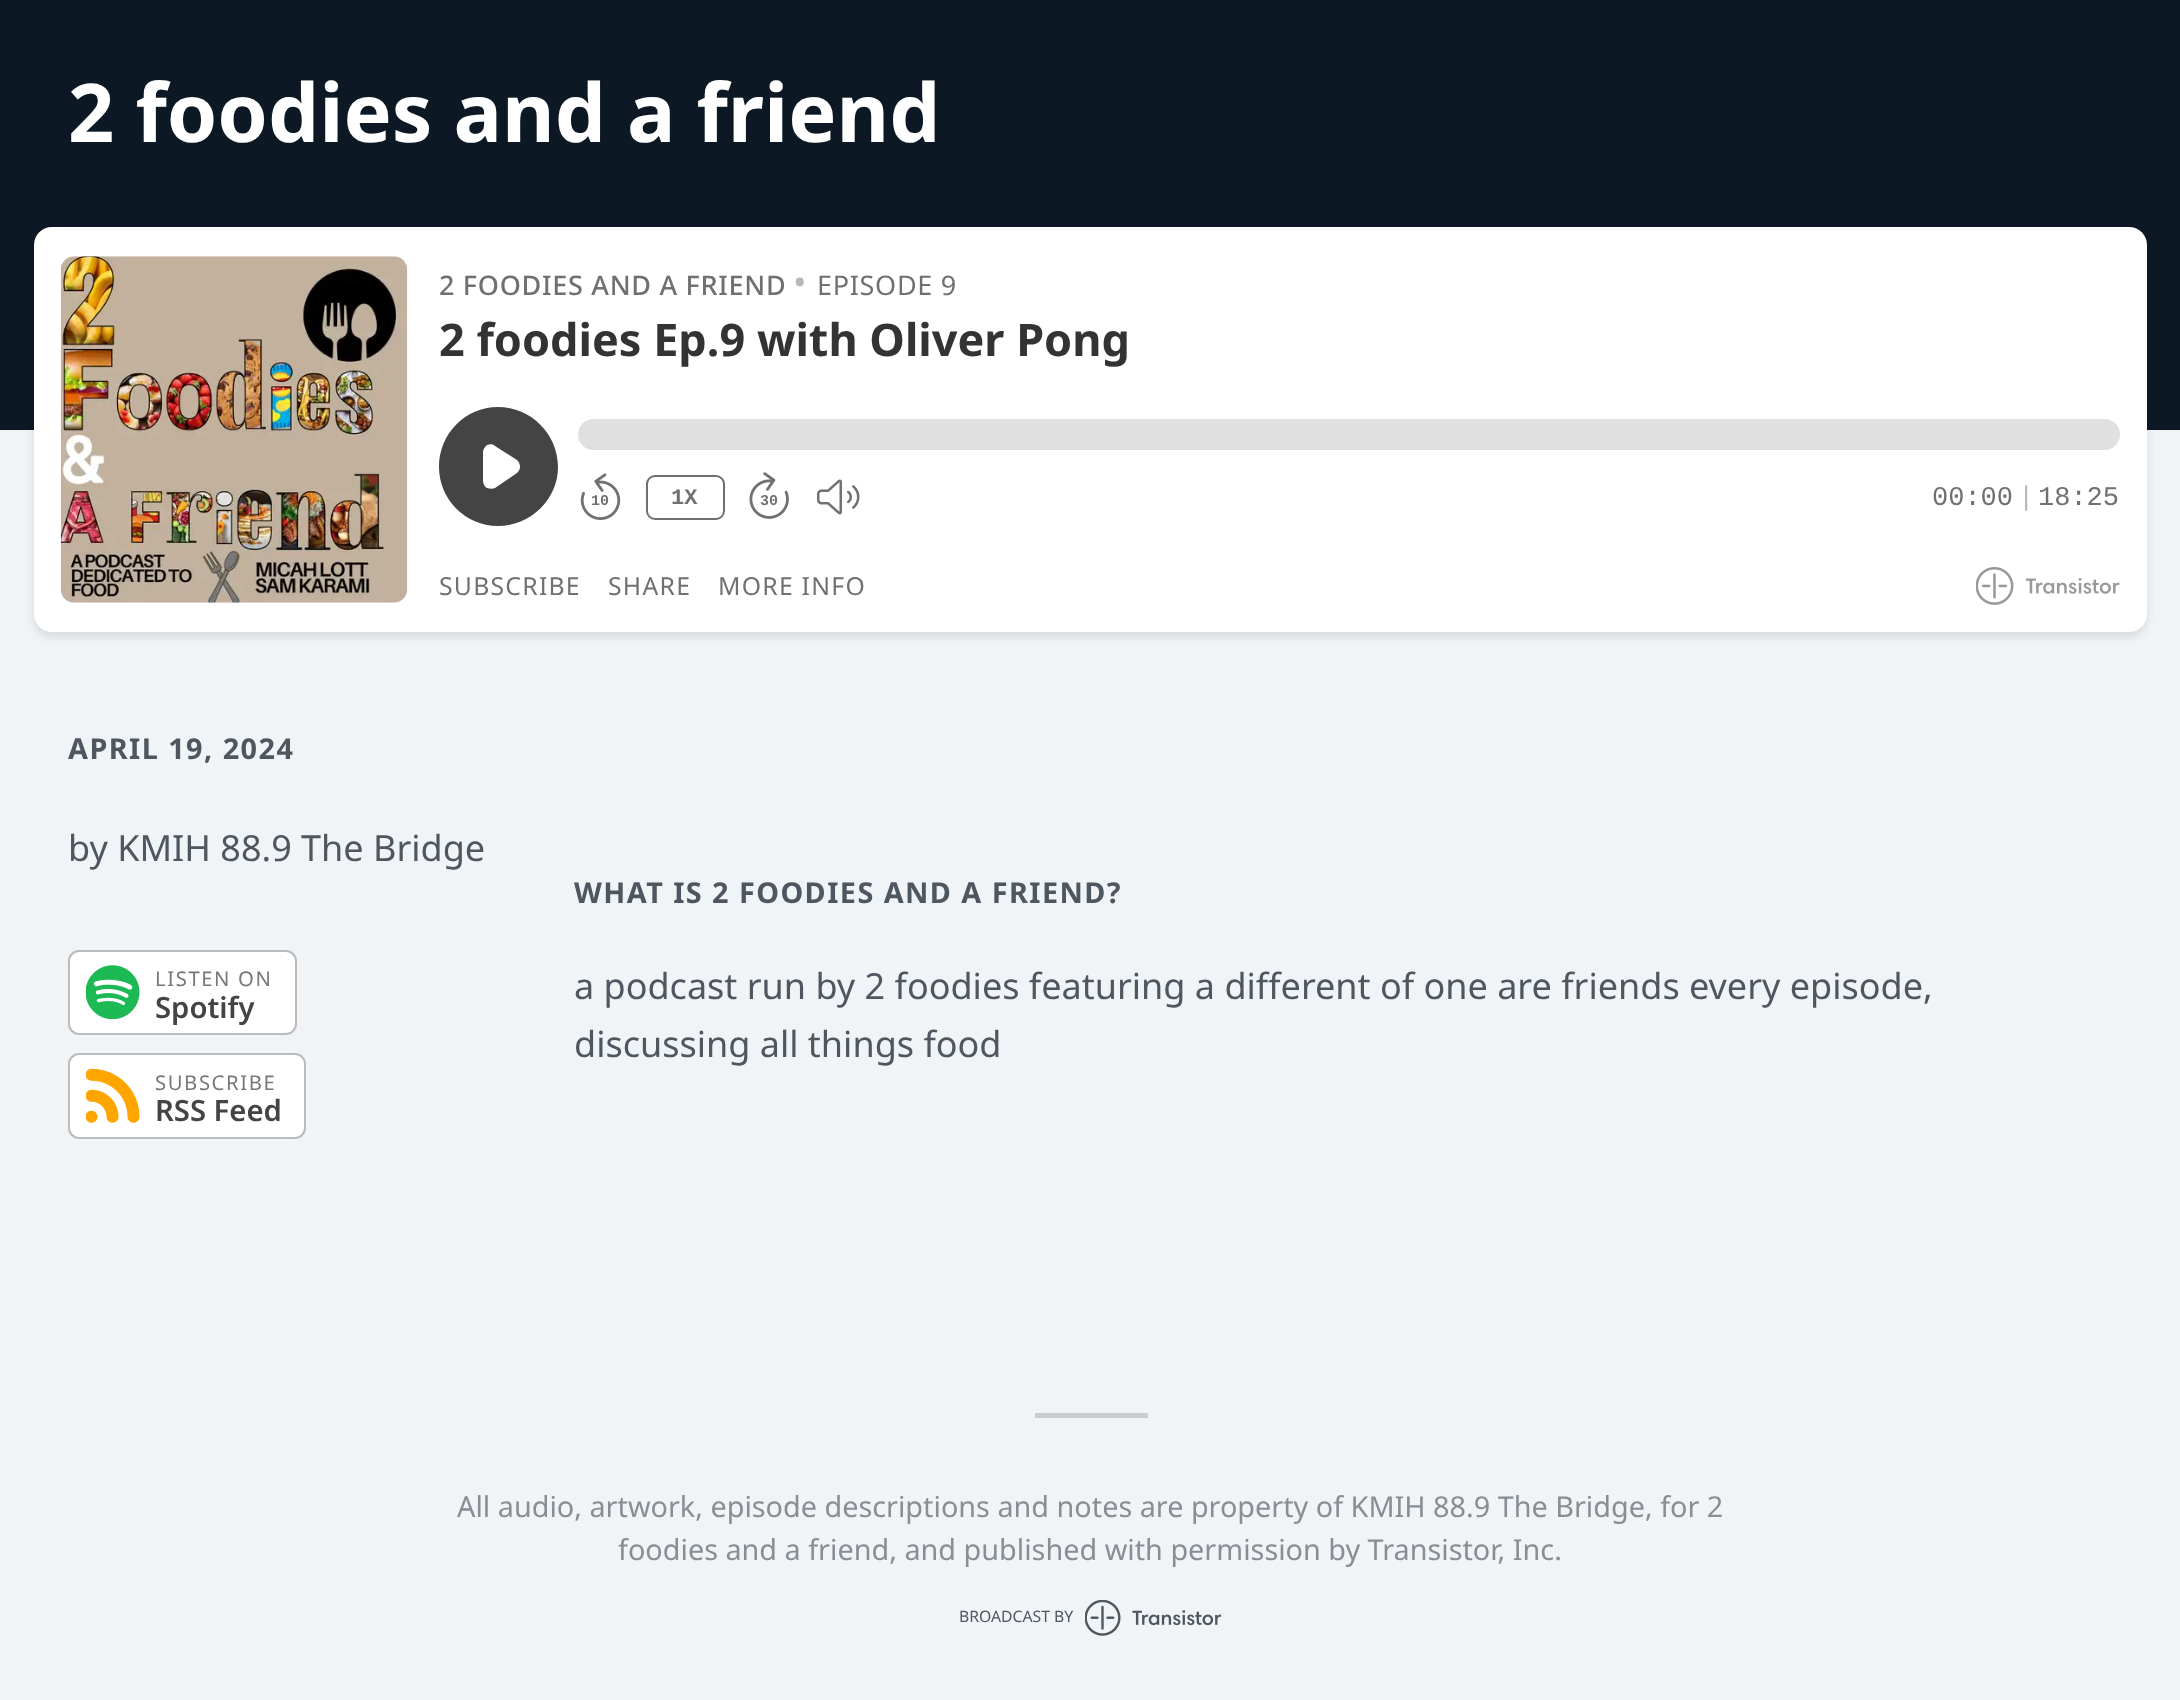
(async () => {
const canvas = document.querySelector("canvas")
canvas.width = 2180
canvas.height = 1700
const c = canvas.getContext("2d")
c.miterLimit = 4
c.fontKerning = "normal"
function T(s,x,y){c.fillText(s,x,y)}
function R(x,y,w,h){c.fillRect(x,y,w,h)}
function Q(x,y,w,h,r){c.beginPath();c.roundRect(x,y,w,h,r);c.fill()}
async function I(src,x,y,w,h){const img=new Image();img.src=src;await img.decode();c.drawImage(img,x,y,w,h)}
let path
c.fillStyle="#f1f4f7"
R(0,0,2180,1700)
c.fillStyle="#0c1824"
R(0,0,2180,430)
c.font="bold 81px Noto Sans"
c.fillStyle="#fff"
T("2 foodies and a friend",68,142)
c.fillStyle="#0000001a"
c.filter="blur(4.5px)"
c.beginPath()
c.roundRect(34,232,2113,405,18)
c.fill()
c.filter="none"
c.fillStyle="#fff"
Q(34,227,2113,405,18)
await I("1.png",60,256,348,347)
c.letterSpacing="0.7px"
c.font="500 27px Noto Sans"
c.fillStyle="#707070"
T("2 FOODIES AND A FRIEND",439,295)
c.font="36px Noto Sans"
c.fillStyle="#b8b8b8"
T("•",793,295)
c.font="27px Noto Sans"
c.fillStyle="#707070"
T("EPISODE 9",817,295)
c.letterSpacing="0px"
c.font="bold 45px Noto Sans"
c.fillStyle="#333"
T("2 foodies Ep.9 with Oliver Pong",439,356)
c.fillStyle="#444"
path = new Path2D("M498 526c33 0 60-27 60-59c0-33-27-60-60-60c-33 0-59 27-59 60c0 32 26 59 59 59zm-3-80c-2-2-5-2-8-1c-2 2-4 4-4 7v29c0 3 2 6 4 7c3 1 6 1 8 0l22-15c2-2 3-4 3-6c0-3-1-5-3-7z")
c.fill(path,"evenodd")
c.fillStyle="#e0e0e0"
Q(578,419,1542,31,15.5)
c.font="bold 15px Liberation Mono"
c.fillStyle="#707070"
T("10",591,505)
await I("2.png",580,473,41,47)
c.beginPath()
c.roundRect(647,476,77,43,8)
c.strokeStyle="#707070"
c.lineWidth=2
c.stroke()
c.font="bold 22px Liberation Mono"
T("1X",671,504)
c.font="bold 15px Liberation Mono"
T("30",760,505)
await I("3.png",749,472,40,47)
await I("4.png",817,479,43,36)
c.font="27px Liberation Mono"
T("00:00",1932,505)
c.fillStyle="#b8b8b8"
T("|",2018,505)
c.fillStyle="#707070"
T("18:25",2038,505)
c.letterSpacing="1.25px"
c.font="24.75px Noto Sans"
T("SUBSCRIBE",439,595)
T("SHARE",608,595)
T("MORE INFO",718,595)
await I("5.png",1976,567,144,38)
c.letterSpacing="1.45px"
c.font="bold 28.8px Noto Sans"
c.fillStyle="#4e575f"
T("APRIL 19, 2024",68,759)
c.letterSpacing="0px"
c.font="36px Noto Sans"
T("by KMIH 88.9 The Bridge",68,861)
c.fillStyle="#fff"
c.beginPath()
c.roundRect(69,951,227,83,10)
c.fill()
c.strokeStyle="#bbb"
c.stroke()
await I("6.png",86,965,54,54)
c.letterSpacing="1.6px"
c.font="20.25px Noto Sans"
c.fillStyle="#777"
T("LISTEN ON",155,986)
c.letterSpacing="0px"
c.font="600 29.25px Noto Sans"
c.fillStyle="#444"
T("Spotify",155,1018)
c.fillStyle="#fff"
c.beginPath()
c.roundRect(69,1054,236,84,10)
c.fill()
c.stroke()
await I("7.png",86,1069,54,54)
c.letterSpacing="1.6px"
c.font="20.25px Noto Sans"
c.fillStyle="#777"
T("SUBSCRIBE",155,1090)
c.letterSpacing="0px"
c.font="600 29.25px Noto Sans"
c.fillStyle="#444"
T("RSS Feed",155,1121)
c.letterSpacing="1.45px"
c.font="bold 28.8px Noto Sans"
c.fillStyle="#4e575f"
T("WHAT IS 2 FOODIES AND A FRIEND?",574,903)
c.letterSpacing="0px"
c.font="36px Noto Sans"
T("a podcast run by 2 foodies featuring a different of one are friends every episode,",574,999)
T("discussing all things food",574,1057)
c.fillStyle="#c8cdd1"
R(1035,1413,113,5)
c.font="28.8px Noto Sans"
c.fillStyle="#878e94"
T("All audio, artwork, episode descriptions and notes are property of KMIH 88.9 The Bridge, for 2",457,1517)
T("foodies and a friend, and published with permission by Transistor, Inc.",618,1560)
c.font="15.75px Noto Sans"
c.fillStyle="#4e575f"
T("BROADCAST BY",959,1622)
await I("8.png",1085,1600,137,36)
})()
